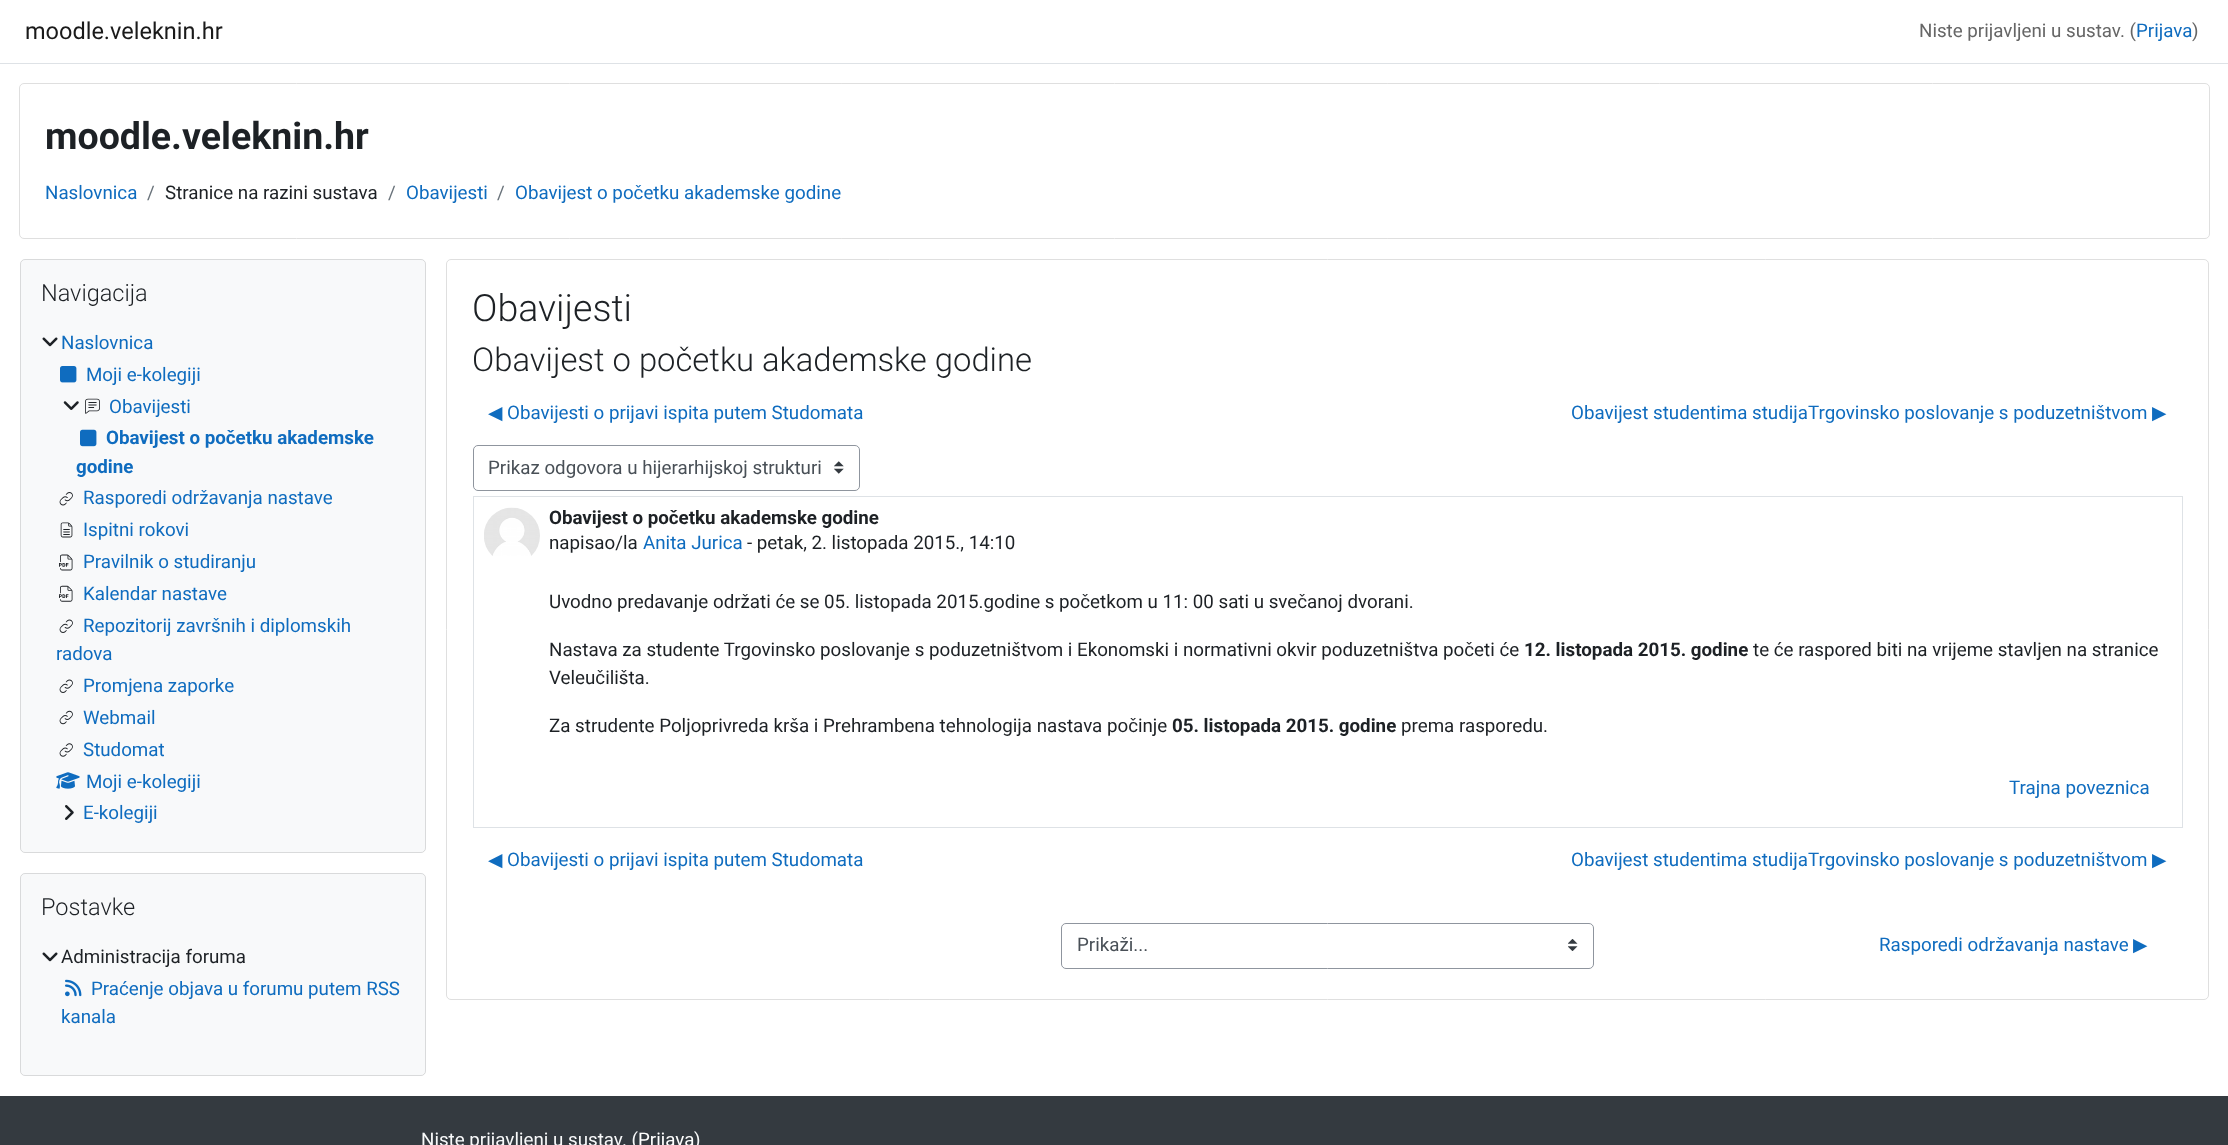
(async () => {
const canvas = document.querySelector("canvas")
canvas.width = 2228
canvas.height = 1145
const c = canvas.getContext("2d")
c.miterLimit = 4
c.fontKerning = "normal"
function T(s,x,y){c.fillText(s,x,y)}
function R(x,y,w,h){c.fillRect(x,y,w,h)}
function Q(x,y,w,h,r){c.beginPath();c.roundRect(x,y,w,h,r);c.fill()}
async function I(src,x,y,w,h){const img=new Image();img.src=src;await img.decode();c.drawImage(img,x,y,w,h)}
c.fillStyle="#fff"
R(0,0,2228,1145)
c.fillStyle="#dee2e6"
R(0,63,2228,1)
c.font="23.5px Roboto"
c.fillStyle="#1a1a1a"
T("moodle.veleknin.hr",25,39)
c.font="18.75px Roboto"
c.fillStyle="#666"
T("Niste prijavljeni u sustav. (",1919,37)
c.fillStyle="#0f6cbf"
T("Prijava",2136,37)
c.fillStyle="#666"
T(")",2192,37)
c.beginPath()
c.roundRect(19.5,83.5,2190,155,4.5)
c.strokeStyle="#dfdfdf"
c.stroke()
c.font="bold 37.5px Roboto"
c.fillStyle="#1d2125"
T("moodle.veleknin.hr",45,149)
c.font="18.75px Roboto"
c.fillStyle="#0f6cbf"
T("Naslovnica",45,199)
c.fillStyle="#6a737b"
T("/",147,199)
c.fillStyle="#1d2125"
T("Stranice na razini sustava",165,199)
c.fillStyle="#6a737b"
T("/",388,199)
c.fillStyle="#0f6cbf"
T("Obavijesti",406,199)
c.fillStyle="#6a737b"
T("/",497,199)
c.fillStyle="#0f6cbf"
T("Obavijest o početku akademske godine",515,199)
c.fillStyle="#f8f9fa"
Q(20,259,406,594,5)
c.beginPath()
c.roundRect(20.5,259.5,405,593,4.5)
c.strokeStyle="#0000001f"
c.stroke()
c.font="300 23.5px Roboto"
c.fillStyle="#1d2125"
T("Navigacija",41,301)
await I("1.png",42,337,16,10)
c.font="18.75px Roboto"
c.fillStyle="#0f6cbf"
T("Naslovnica",61,349)
await I("2.png",60,366,17,17)
T("Moji e-kolegiji",86,381)
await I("3.png",63,401,16,9)
await I("4.png",85,398,15,16)
T("Obavijesti",109,413)
await I("5.png",80,429,17,18)
c.font="bold 18.75px Roboto"
T("Obavijest o početku akademske",106,444)
T("godine",76,473)
await I("6.png",59,492,14,14)
c.font="18.75px Roboto"
T("Rasporedi održavanja nastave",83,504)
await I("7.png",60,522,13,16)
T("Ispitni rokovi",83,536)
await I("8.png",59,554,14,17)
T("Pravilnik o studiranju",83,568)
await I("9.png",59,585,14,17)
T("Kalendar nastave",83,600)
await I("10.png",59,619,14,14)
T("Repozitorij završnih i diplomskih",83,632)
T("radova",56,660)
await I("10.png",59,679,14,14)
T("Promjena zaporke",83,692)
await I("11.png",59,710,14,15)
T("Webmail",83,724)
await I("12.png",59,743,14,14)
T("Studomat",83,756)
await I("13.png",56,772,24,17)
T("Moji e-kolegiji",86,788)
await I("14.png",65,805,9,15)
T("E-kolegiji",83,819)
c.fillStyle="#f8f9fa"
Q(20,873,406,203,5)
c.beginPath()
c.roundRect(20.5,873.5,405,202,4.5)
c.stroke()
c.font="300 23.5px Roboto"
c.fillStyle="#1d2125"
T("Postavke",41,915)
await I("1.png",42,952,16,10)
c.font="18.75px Roboto"
T("Administracija foruma",61,963)
await I("15.png",65,979,17,18)
c.fillStyle="#0f6cbf"
T("Praćenje objava u forumu putem RSS",91,995)
T("kanala",61,1023)
c.beginPath()
c.roundRect(446.5,259.5,1762,740,4.5)
c.strokeStyle="#dfdfdf"
c.stroke()
c.font="300 37.5px Roboto"
c.fillStyle="#1d2125"
T("Obavijesti",472,321)
c.font="300 32.8px Roboto"
T("Obavijest o početku akademske godine",472,371)
c.font="18.75px DejaVu Sans"
c.fillStyle="#0f6cbf"
T("◀︎",488,419)
c.font="18.75px Roboto"
T("Obavijesti o prijavi ispita putem Studomata",507,419)
T("Obavijest studentima studijaTrgovinsko poslovanje s poduzetništvom",1571,419)
c.font="18.75px DejaVu Sans"
T("▶︎",2152,419)
await I("16.png",834,461,10,13)
c.beginPath()
c.roundRect(473.5,445.5,386,45,4.5)
c.strokeStyle="#8f959e"
c.stroke()
c.font="18.75px Roboto"
c.fillStyle="#495057"
T("Prikaz odgovora u hijerarhijskoj strukturi",488,474)
c.strokeStyle="#dee2e6"
c.strokeRect(473.5,496.5,1709,331)
await I("17.png",484,507,56,49)
c.font="bold 18.75px Roboto"
c.fillStyle="#1d2125"
T("Obavijest o početku akademske godine",549,524)
c.font="18.75px Roboto"
T("napisao/la",549,549)
c.fillStyle="#0f6cbf"
T("Anita Jurica",643,549)
c.fillStyle="#1d2125"
T("- petak, 2. listopada 2015., 14:10",747,549)
T("Uvodno predavanje održati će se 05. listopada 2015.godine s početkom u 11: 00 sati u svečanoj dvorani.",549,608)
T("Nastava za studente Trgovinsko poslovanje s poduzetništvom i Ekonomski i normativni okvir poduzetništva početi će",549,656)
c.font="bold 18.75px Roboto"
T("12. listopada 2015. godine",1524,656)
c.font="18.75px Roboto"
T("te će raspored biti na vrijeme stavljen na stranice",1753,656)
T("Veleučilišta.",549,684)
T("Za strudente Poljoprivreda krša i Prehrambena tehnologija nastava počinje",549,732)
c.font="bold 18.75px Roboto"
T("05. listopada 2015. godine",1172,732)
c.font="18.75px Roboto"
T("prema rasporedu.",1401,732)
c.fillStyle="#0f6cbf"
T("Trajna poveznica",2009,794)
c.font="18.75px DejaVu Sans"
T("◀︎",488,866)
c.font="18.75px Roboto"
T("Obavijesti o prijavi ispita putem Studomata",507,866)
T("Obavijest studentima studijaTrgovinsko poslovanje s poduzetništvom",1571,866)
c.font="18.75px DejaVu Sans"
T("▶︎",2152,866)
await I("18.png",1568,939,10,12)
c.beginPath()
c.roundRect(1061.5,923.5,532,45,4.5)
c.strokeStyle="#8f959e"
c.stroke()
c.font="18.75px Roboto"
c.fillStyle="#495057"
T("Prikaži...",1077,951)
c.fillStyle="#0f6cbf"
T("Rasporedi održavanja nastave",1879,951)
c.font="18.75px DejaVu Sans"
T("▶︎",2133,951)
c.fillStyle="#343a40"
R(0,1096,2228,49)
c.font="18.75px Roboto"
c.fillStyle="#f8f9fa"
T("Niste prijavljeni u sustav. (",421,1146)
c.fillStyle="#fff"
T("Prijava",638,1146)
c.fillStyle="#f8f9fa"
T(")",694,1146)
})()
